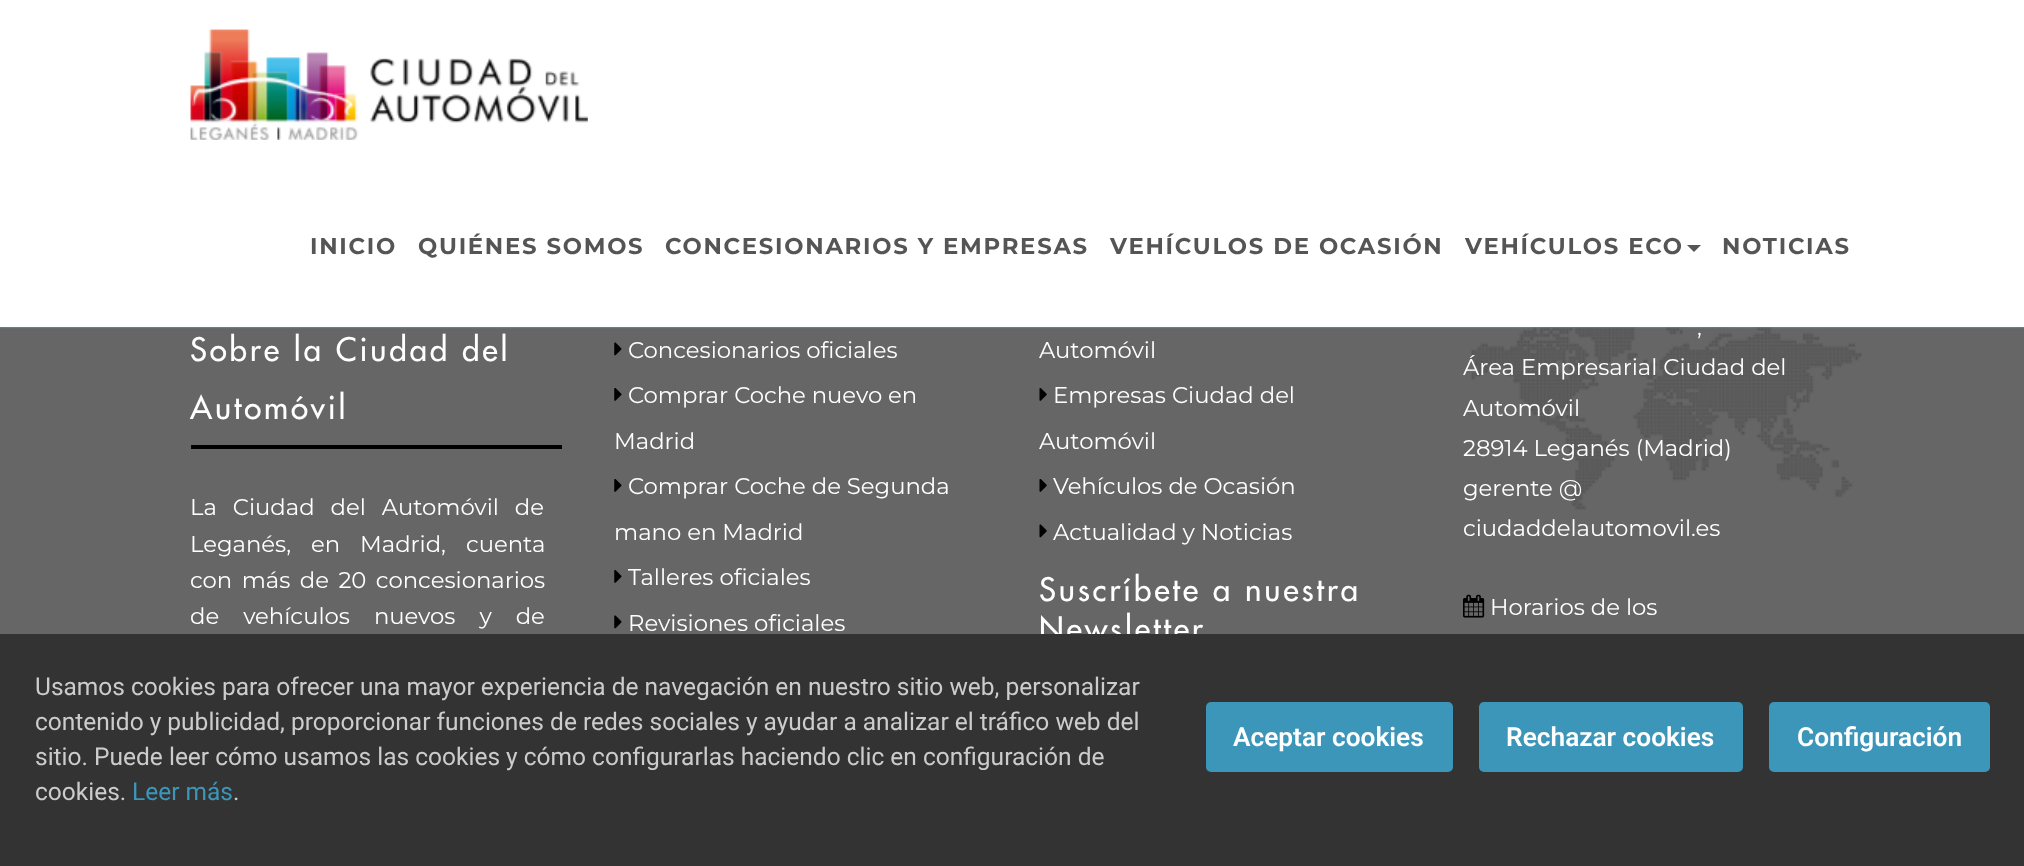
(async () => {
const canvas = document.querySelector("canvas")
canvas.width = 2024
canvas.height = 866
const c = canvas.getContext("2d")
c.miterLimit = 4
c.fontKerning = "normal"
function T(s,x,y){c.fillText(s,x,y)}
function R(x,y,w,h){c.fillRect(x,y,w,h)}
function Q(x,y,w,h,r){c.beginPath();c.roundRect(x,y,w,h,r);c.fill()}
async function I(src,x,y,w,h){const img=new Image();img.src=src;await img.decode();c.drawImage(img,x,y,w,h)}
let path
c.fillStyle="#666"
R(0,0,2024,866)
await I("6.png",1471,327,391,183)
c.fillStyle="#4cbce8"
c.filter="blur(1px)"
c.beginPath()
c.rect(0,0,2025,327)
c.fill()
c.filter="none"
c.fillStyle="#fff"
R(0,0,2024,327)
await I("1.png",190,29,398,111)
c.letterSpacing="1.75px"
c.font="bold 22.75px Montserrat"
c.fillStyle="#555"
T("INICIO",310,254)
T("QUIÉNES SOMOS",418,254)
T("CONCESIONARIOS Y EMPRESAS",665,254)
T("VEHÍCULOS DE OCASIÓN",1110,254)
T("VEHÍCULOS ECO",1465,254)
path = new Path2D("M1687 245h14l-7 7z")
c.fill(path)
T("NOTICIAS",1722,254)
c.fillStyle="#000"
R(191,445,371,4)
c.letterSpacing="2.8px"
c.font="31.5px Futura"
c.fillStyle="#fff"
T("Sobre la Ciudad del",190,361)
T("Automóvil",190,419)
c.letterSpacing="0px"
c.wordSpacing="10px"
c.font="22.75px Montserrat"
T("La Ciudad del Automóvil de",190,515)
c.wordSpacing="14px"
T("Leganés, en Madrid, cuenta",190,552)
c.wordSpacing="3.5px"
T("con más de 20 concesionarios",190,588)
c.wordSpacing="18px"
T("de vehículos nuevos y de",190,624)
await I("2.png",614,342,8,14)
c.wordSpacing="0px"
T("Concesionarios oficiales",628,358)
await I("3.png",614,388,8,13)
T("Comprar Coche nuevo en",628,403)
T("Madrid",614,449)
await I("3.png",614,479,8,13)
T("Comprar Coche de Segunda",628,494)
T("mano en Madrid",614,540)
await I("3.png",614,570,8,13)
T("Talleres oficiales",628,585)
await I("2.png",614,615,8,14)
T("Revisiones oficiales",628,631)
T("Automóvil",1039,358)
await I("4.png",1039,388,8,13)
T("Empresas Ciudad del",1053,403)
T("Automóvil",1039,449)
await I("4.png",1039,479,8,13)
T("Vehículos de Ocasión",1053,494)
await I("5.png",1039,524,8,14)
T("Actualidad y Noticias",1053,540)
c.letterSpacing="2.8px"
c.font="31.5px Futura"
T("Suscríbete a nuestra",1039,601)
T("Newsletter",1039,640)
c.letterSpacing="0px"
c.font="22.75px Montserrat"
T(",",1697,335)
T("Área Empresarial Ciudad del",1463,375)
T("Automóvil",1463,416)
T("28914 Leganés (Madrid)",1463,456)
T("gerente @",1463,496)
T("ciudaddelautomovil.es",1463,536)
await I("7.png",1463,594,22,24)
T("Horarios de los",1490,615)
c.fillStyle="#333"
R(0,634,2024,232)
c.font="24.5px Roboto"
c.fillStyle="#ccc"
T("Usamos cookies para ofrecer una mayor experiencia de navegación en nuestro sitio web, personalizar",35,695)
T("contenido y publicidad, proporcionar funciones de redes sociales y ayudar a analizar el tráfico web del",35,730)
T("sitio. Puede leer cómo usamos las cookies y cómo configurarlas haciendo clic en configuración de",35,765)
T("cookies.",35,800)
c.fillStyle="#3c96b9"
T("Leer más",132,800)
c.fillStyle="#ccc"
T(".",233,800)
c.fillStyle="#3c96b9"
Q(1206,702,247,70,5)
c.font="600 26.25px Roboto"
c.fillStyle="#fff"
T("Aceptar cookies",1233,746)
c.fillStyle="#3c96b9"
Q(1479,702,264,70,5)
c.fillStyle="#fff"
T("Rechazar cookies",1506,746)
c.fillStyle="#3c96b9"
Q(1769,702,221,70,5)
c.fillStyle="#fff"
T("Configuración",1797,746)
})()
